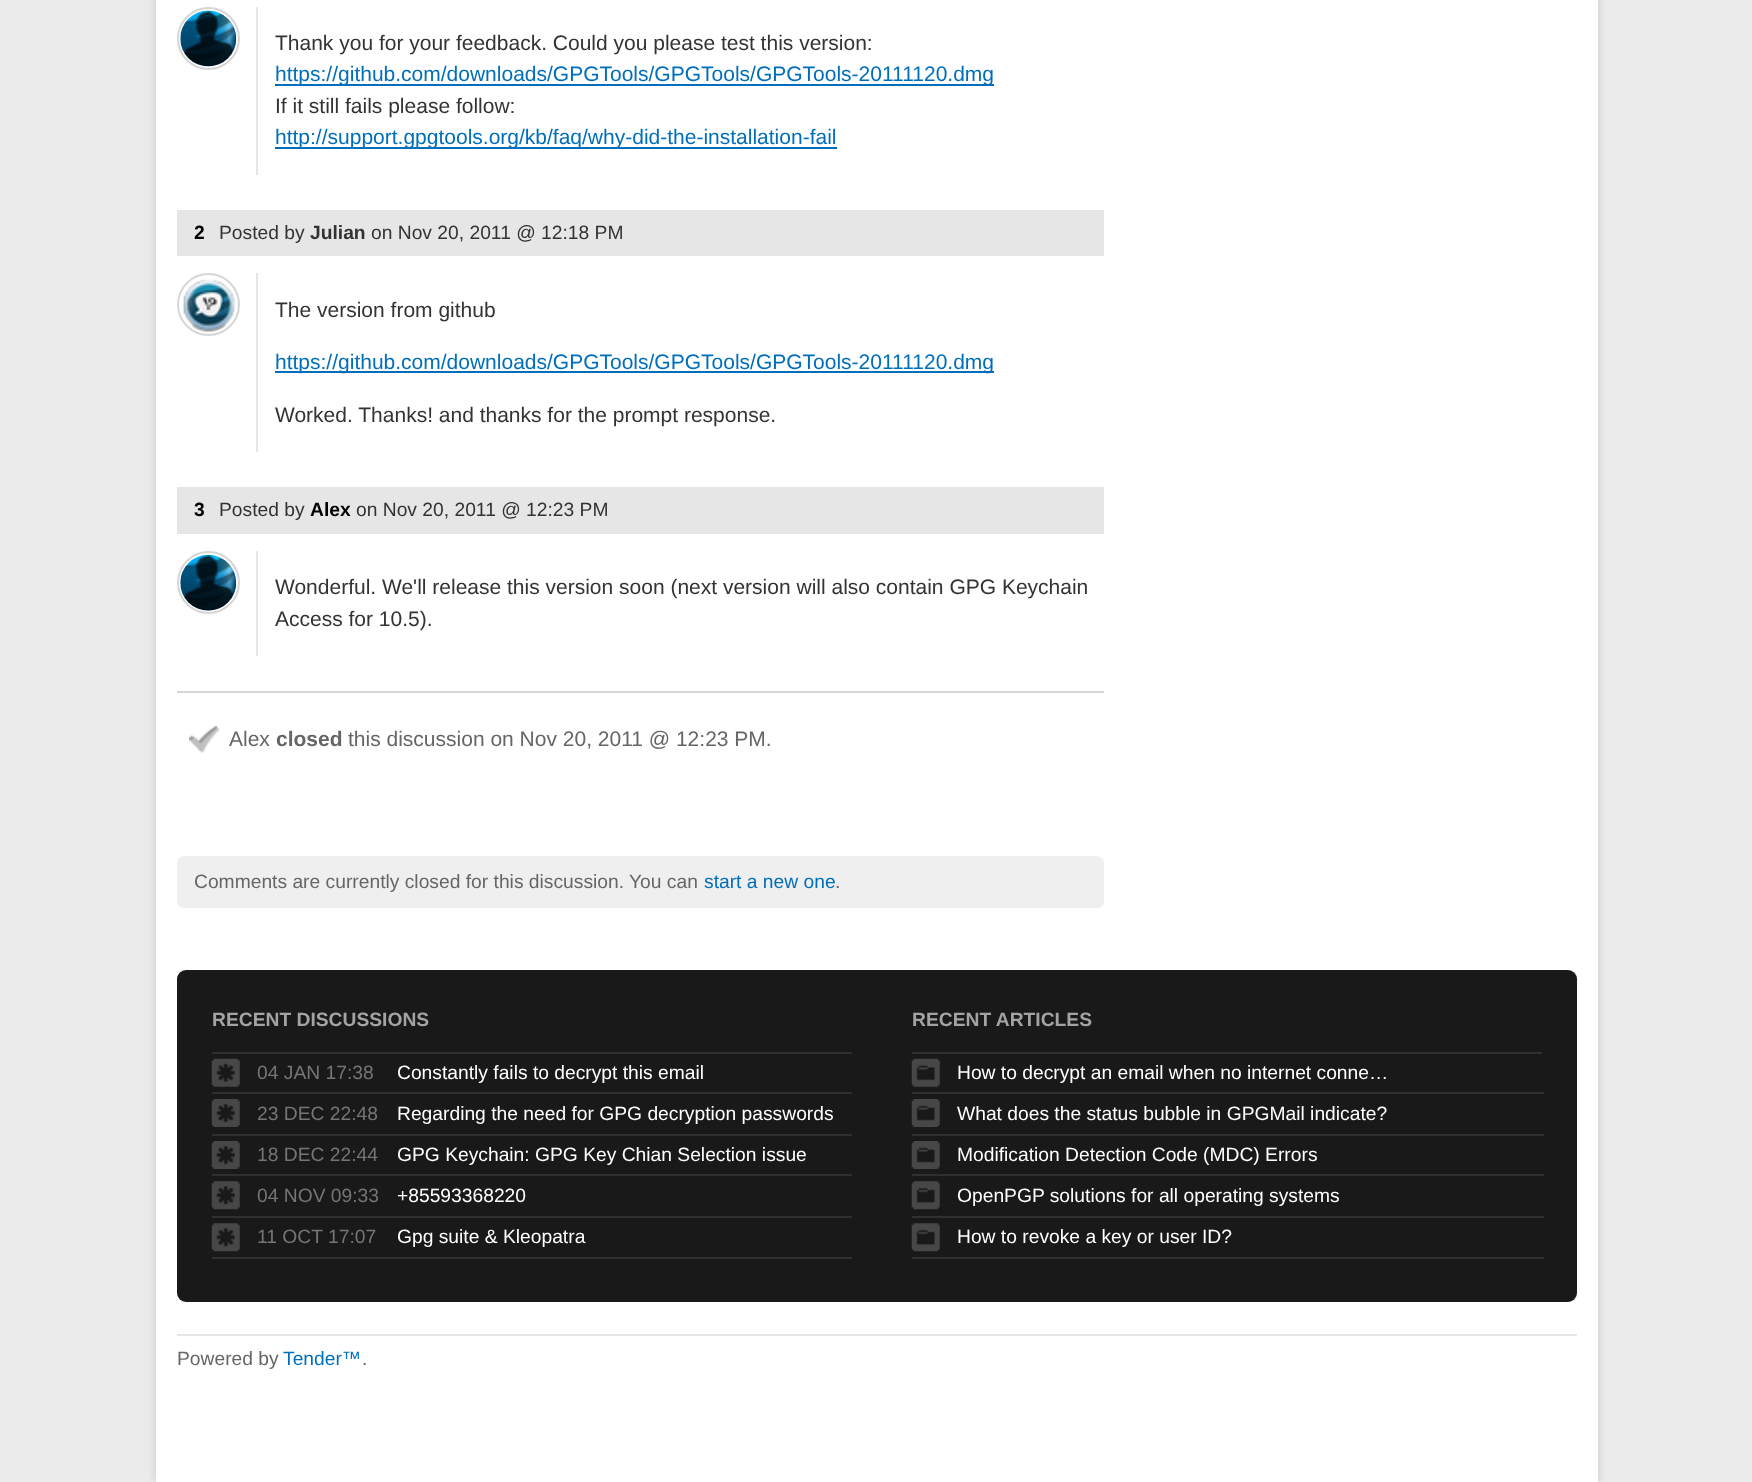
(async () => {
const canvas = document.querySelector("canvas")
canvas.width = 1752
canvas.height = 1482
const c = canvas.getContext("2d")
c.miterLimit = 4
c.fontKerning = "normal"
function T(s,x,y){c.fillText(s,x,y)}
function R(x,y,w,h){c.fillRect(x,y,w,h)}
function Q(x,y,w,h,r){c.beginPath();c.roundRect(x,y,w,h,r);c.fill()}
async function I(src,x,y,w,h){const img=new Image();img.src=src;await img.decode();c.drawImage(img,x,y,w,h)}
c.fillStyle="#ebebeb"
R(0,0,1752,1482)
c.fillStyle="#00000026"
c.filter="blur(4.5px)"
c.beginPath()
c.rect(156,-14,1442,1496)
c.fill()
c.filter="none"
c.fillStyle="#fff"
R(156,0,1442,1482)
c.beginPath()
c.arc(208.5,38.5,30.5,0,7)
c.strokeStyle="#d6d6d6"
c.lineWidth=2
c.stroke()
await I("1.png",180,10,57,57)
c.fillStyle="#e6e6e6"
R(256,7,2,168)
c.font="21px Liberation Sans"
c.fillStyle="#333"
T("Thank you for your feedback. Could you please test this version:",275,50)
c.fillStyle="#006fbb"
R(275,84,719,2)
T("https://github.com/downloads/GPGTools/GPGTools/GPGTools-20111120.dmg",275,81)
c.fillStyle="#333"
T("If it still fails please follow:",275,113)
c.fillStyle="#006fbb"
R(275,147,562,2)
T("http://support.gpgtools.org/kb/faq/why-did-the-installation-fail",275,144)
c.fillStyle="#e6e6e6"
R(177,210,927,46)
c.font="bold 19.25px Liberation Sans"
c.fillStyle="#000"
T("2",194,239)
c.font="19.25px Liberation Sans"
c.fillStyle="#333"
T("Posted by",219,239)
c.font="bold 19.25px Liberation Sans"
T("Julian",310,239)
c.font="19.25px Liberation Sans"
T("on Nov 20, 2011 @ 12:18 PM",371,239)
c.beginPath()
c.arc(208.5,304.5,30.5,0,7)
c.stroke()
await I("2.png",182,279,53,54)
c.fillStyle="#e6e6e6"
R(256,273,2,179)
c.font="21px Liberation Sans"
c.fillStyle="#333"
T("The version from github",275,317)
c.fillStyle="#006fbb"
R(275,371,719,2)
T("https://github.com/downloads/GPGTools/GPGTools/GPGTools-20111120.dmg",275,369)
c.fillStyle="#333"
T("Worked. Thanks! and thanks for the prompt response.",275,422)
c.fillStyle="#e6e6e6"
R(177,487,927,47)
c.font="bold 19.25px Liberation Sans"
c.fillStyle="#000"
T("3",194,516)
c.font="19.25px Liberation Sans"
c.fillStyle="#333"
T("Posted by",219,516)
c.font="bold 19.25px Liberation Sans"
c.fillStyle="#000"
T("Alex",310,516)
c.font="19.25px Liberation Sans"
c.fillStyle="#333"
T("on Nov 20, 2011 @ 12:23 PM",356,516)
c.beginPath()
c.arc(208.5,582.5,30.5,0,7)
c.stroke()
await I("3.png",180,554,57,57)
c.fillStyle="#e6e6e6"
R(256,551,2,105)
c.font="21px Liberation Sans"
c.fillStyle="#333"
T("Wonderful. We'll release this version soon (next version will also contain GPG Keychain",275,594)
T("Access for 10.5).",275,626)
c.fillStyle="#d6d6d6"
R(177,691,927,2)
await I("4.png",189,725,31,28)
c.fillStyle="#666"
T("Alex",229,746)
c.font="bold 21px Liberation Sans"
T("closed",276,746)
c.font="21px Liberation Sans"
T("this discussion on Nov 20, 2011 @ 12:23 PM.",348,746)
c.fillStyle="#efefef"
Q(177,856,927,52,7)
c.font="19.25px Liberation Sans"
c.fillStyle="#666"
T("Comments are currently closed for this discussion.",194,888)
T("You can",629,888)
c.fillStyle="#006fbb"
T("start a new one",704,888)
c.fillStyle="#666"
T(".",835,888)
c.fillStyle="#191919"
Q(177,970,1400,332,9)
c.font="bold 19.25px Liberation Sans"
c.fillStyle="#a3a3a3"
T("RECENT DISCUSSIONS",212,1026)
c.fillStyle="#303030"
R(212,1052,640,2)
await I("5.png",211,1058,29,29)
c.font="19.25px Liberation Sans"
c.fillStyle="#757575"
T("04 JAN 17:38",257,1079)
c.fillStyle="#303030"
R(212,1092,640,2)
c.fillStyle="#fff"
T("Constantly fails to decrypt this email",397,1079)
await I("6.png",211,1099,29,28)
c.fillStyle="#757575"
T("23 DEC 22:48",257,1120)
c.fillStyle="#303030"
R(212,1134,640,2)
c.fillStyle="#fff"
T("Regarding the need for GPG decryption passwords",397,1120)
await I("6.png",211,1141,29,28)
c.fillStyle="#757575"
T("18 DEC 22:44",257,1161)
c.fillStyle="#303030"
R(212,1174,640,2)
c.fillStyle="#fff"
T("GPG Keychain: GPG Key Chian Selection issue",397,1161)
await I("7.png",211,1181,29,29)
c.fillStyle="#757575"
T("04 NOV 09:33",257,1202)
c.fillStyle="#303030"
R(212,1216,640,2)
c.fillStyle="#fff"
T("+85593368220",397,1202)
await I("7.png",211,1223,29,29)
c.fillStyle="#757575"
T("11 OCT 17:07",257,1243)
c.fillStyle="#303030"
R(212,1257,640,2)
c.fillStyle="#fff"
T("Gpg suite & Kleopatra",397,1243)
c.font="bold 19.25px Liberation Sans"
c.fillStyle="#a3a3a3"
T("RECENT ARTICLES",912,1026)
c.fillStyle="#303030"
R(912,1052,630,2)
await I("8.png",911,1058,29,29)
R(912,1092,632,2)
c.font="19.25px Liberation Sans"
c.fillStyle="#fff"
T("How to decrypt an email when no internet conne…",957,1079)
await I("9.png",911,1099,29,28)
c.fillStyle="#303030"
R(912,1134,632,2)
c.fillStyle="#fff"
T("What does the status bubble in GPGMail indicate?",957,1120)
await I("9.png",911,1141,29,28)
c.fillStyle="#303030"
R(912,1174,632,2)
c.fillStyle="#fff"
T("Modification Detection Code (MDC) Errors",957,1161)
await I("10.png",911,1181,29,29)
c.fillStyle="#303030"
R(912,1216,632,2)
c.fillStyle="#fff"
T("OpenPGP solutions for all operating systems",957,1202)
await I("10.png",911,1223,29,29)
c.fillStyle="#303030"
R(912,1257,632,2)
c.fillStyle="#fff"
T("How to revoke a key or user ID?",957,1243)
c.fillStyle="#e6e6e6"
R(177,1334,1400,2)
c.fillStyle="#666"
T("Powered by",177,1365)
c.fillStyle="#006fbb"
T("Tender™",283,1365)
c.fillStyle="#666"
T(".",362,1365)
})()
